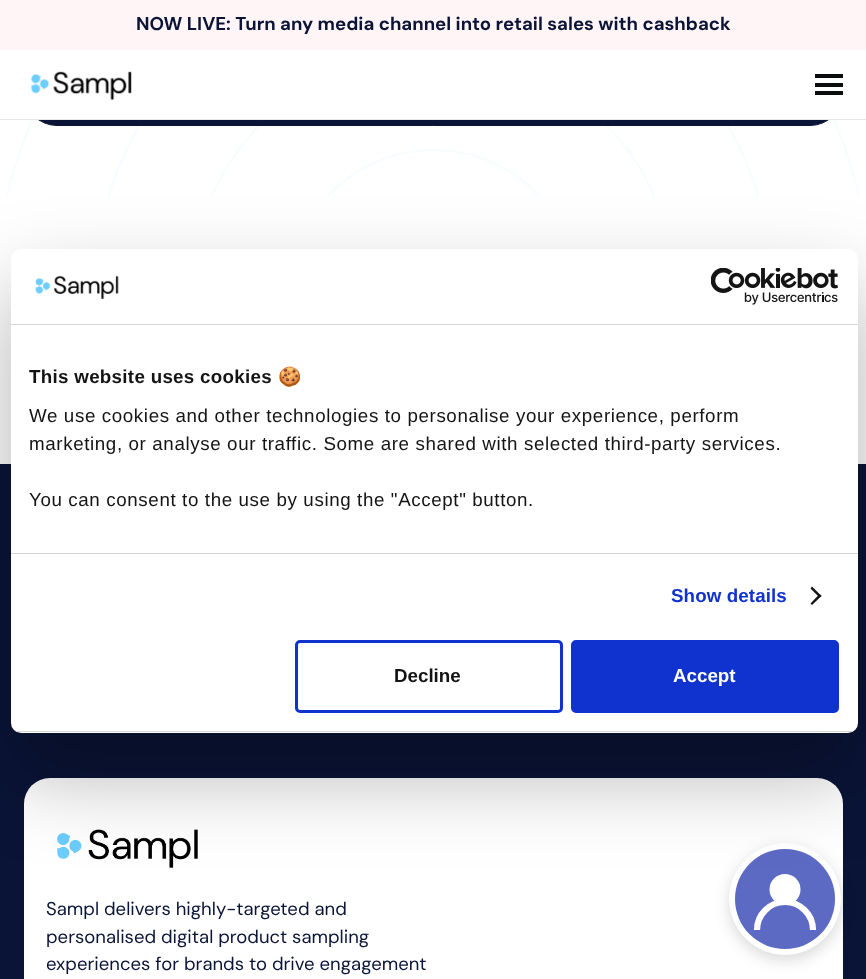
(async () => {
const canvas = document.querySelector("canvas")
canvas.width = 866
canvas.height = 979
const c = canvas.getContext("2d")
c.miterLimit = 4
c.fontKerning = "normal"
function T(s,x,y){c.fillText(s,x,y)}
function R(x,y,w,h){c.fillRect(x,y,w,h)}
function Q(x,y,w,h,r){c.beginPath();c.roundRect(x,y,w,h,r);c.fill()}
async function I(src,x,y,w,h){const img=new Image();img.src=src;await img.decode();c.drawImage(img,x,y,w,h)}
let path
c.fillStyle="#fff"
R(0,0,866,979)
c.beginPath()
c.roundRect(289,150,289,290,144.5)
c.strokeStyle="#f6fcff"
c.lineWidth=2
c.stroke()
c.beginPath()
c.roundRect(191,52,484,486,242)
c.stroke()
c.beginPath()
c.roundRect(94,-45,679,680,339.5)
c.stroke()
c.beginPath()
c.roundRect(-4,-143,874,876,437)
c.stroke()
c.fillStyle="#0a1437"
c.beginPath()
c.roundRect(24.5,60.5,818,65,32.5)
c.fill()
c.strokeStyle="#0a1437"
c.lineWidth=1
c.stroke()
c.fillStyle="#fff5f7"
R(0,0,866,50)
c.font="bold 18.55px DM Sans"
c.fillStyle="#0a1437"
T("NOW LIVE: Turn any media channel into retail sales with cashback",136,30)
c.fillStyle="#fff"
R(24,50,819,69)
c.fillStyle="#e8e6e8"
R(0,119,866,1)
await I("1.png",31,71,101,30)
c.fillStyle="#0b0c0e"
R(815,74,28,4)
R(815,83,28,4)
R(815,91,28,4)
c.fillStyle="#0a1437"
R(0,464,866,515)
c.fillStyle="#fff"
R(0,196,866,268)
Q(24,778,819,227,26)
await I("2.png",57,829,141,39)
c.font="18.55px DM Sans"
c.fillStyle="#0a1437"
T("Sampl delivers highly-targeted and",46,915)
T("personalised digital product sampling",46,943)
T("experiences for brands to drive engagement",46,970)
c.fillStyle="#00000026"
c.filter="blur(7.5px)"
c.beginPath()
c.roundRect(729,848,112,112,56)
c.fill()
c.filter="none"
c.fillStyle="#fff"
c.beginPath()
c.arc(785,899,55.5,0,7)
c.fill()
c.strokeStyle="#fff"
c.stroke()
c.fillStyle="#e5e7eb"
c.beginPath()
c.arc(785.5,898.5,51,0,7)
c.fill()
c.lineWidth=3
c.stroke()
c.fillStyle="#5c6ac4"
c.beginPath()
c.arc(785,899,50,0,7)
c.fill()
c.fillStyle="#fff"
c.beginPath()
c.arc(785,889.5,15.5,0,7)
c.fill()
path = new Path2D("M757 930c0-15.5 12.5-28 28-28c15.5 0 28 12.5 28 28")
c.lineWidth=6.2
c.stroke(path)
c.fillStyle="#0000004d"
c.filter="blur(42.5px)"
c.beginPath()
c.roundRect(11,289,847,484,10)
c.fill()
c.filter="none"
c.fillStyle="#fff"
Q(11,249,847,484,10)
c.fillStyle="#d6d6d6"
R(11,324,847,1)
await I("3.png",35,275,84,24)
await I("4.png",711,268,127,37)
R(11,553,847,1)
c.letterSpacing="0.3px"
c.font="bold 18.75px Liberation Sans"
c.fillStyle="#141414"
T("This website uses cookies",29,383)
c.font="bold 18.75px Noto Color Emoji"
T("🍪",278,383)
c.letterSpacing="0.62px"
c.font="18.75px Liberation Sans"
T("We use cookies and other technologies to personalise your experience, perform",29,422)
T("marketing, or analyse our traffic. Some are shared with selected third-party services.",29,450)
T("You can consent to the use by using the \"Accept\" button.",29,506)
c.letterSpacing="0.1px"
c.font="bold 18.75px Liberation Sans"
c.fillStyle="#1032cf"
T("Show details",671,602)
c.fillStyle="#141414"
path = new Path2D("M812 586.5l9.5 9.5l-2 1.5l-9-9z")
c.fill(path)
path = new Path2D("M819.5 594l2 2l-9.5 9l-1.5-1.5z")
c.fill(path)
c.save()
c.beginPath()
c.roundRect(11,249,847,484,10)
c.clip()
c.fillStyle="#d6d6d6"
R(11,731,847,1)
c.restore()
c.beginPath()
c.roundRect(296.5,641.5,265,70,3.5)
c.strokeStyle="#1032cf"
c.lineWidth=3
c.stroke()
c.letterSpacing="0px"
T("Decline",394,682)
c.fillStyle="#1032cf"
c.beginPath()
c.roundRect(572.5,641.5,265,70,3.5)
c.fill()
c.stroke()
c.fillStyle="#fff"
T("Accept",673,682)
})()
